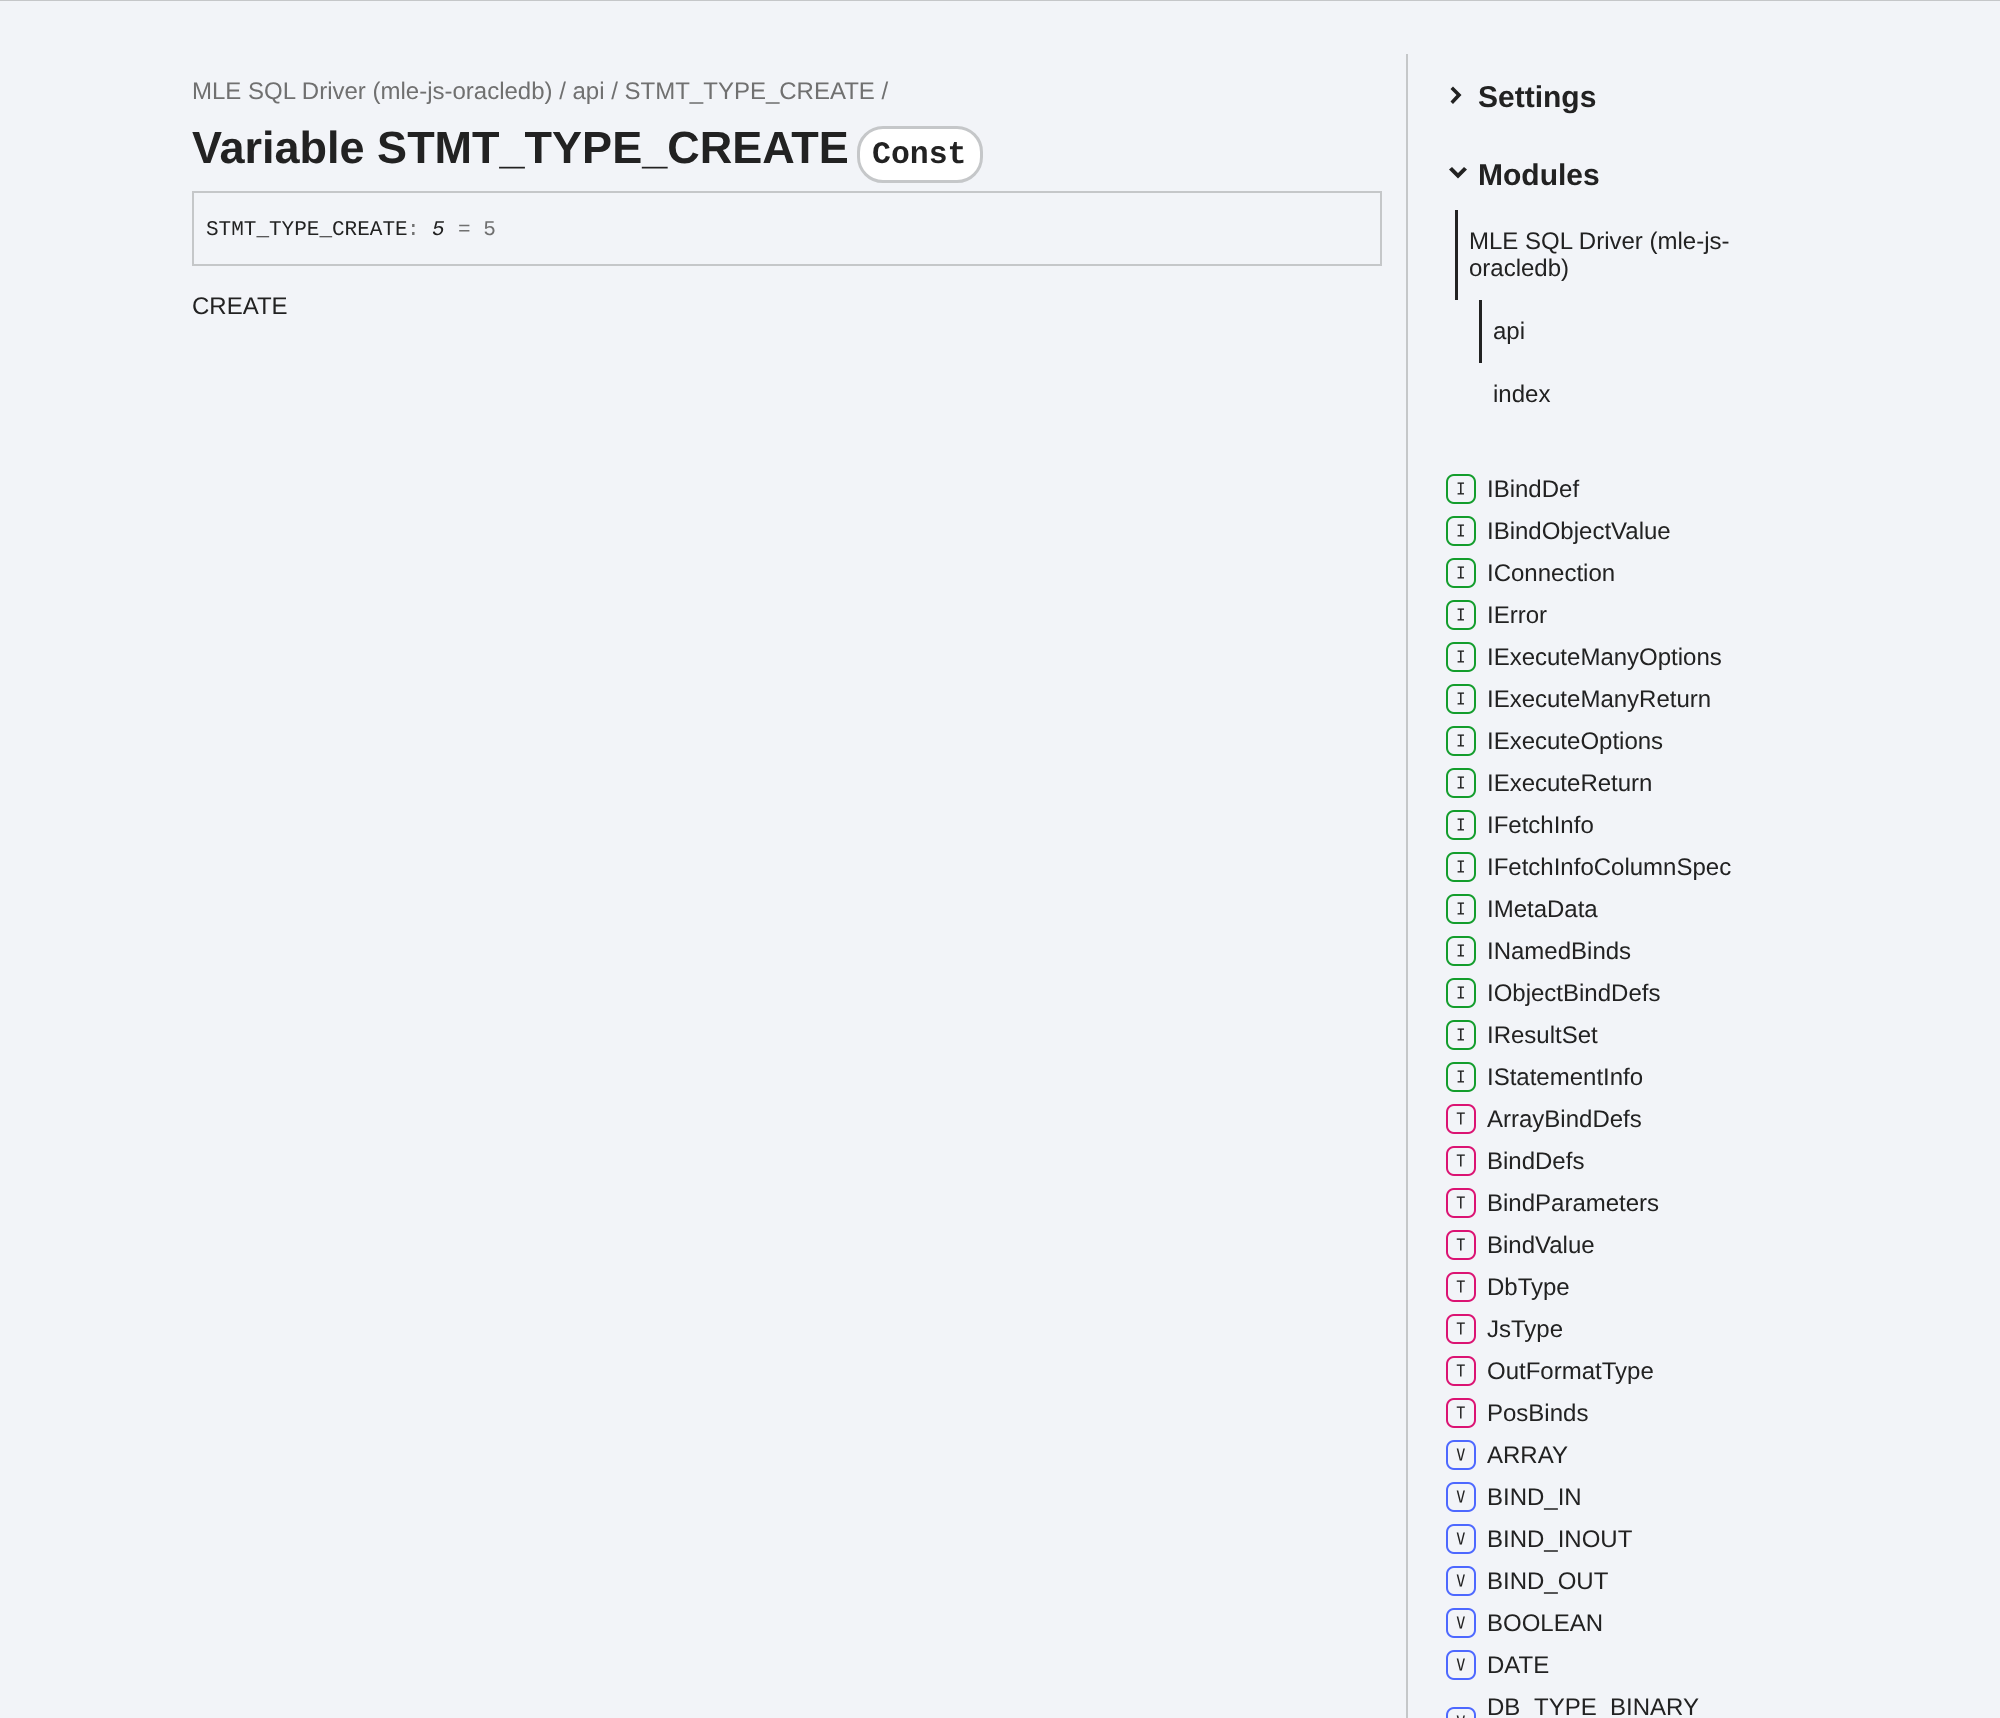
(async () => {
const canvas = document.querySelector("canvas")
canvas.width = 2000
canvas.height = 1718
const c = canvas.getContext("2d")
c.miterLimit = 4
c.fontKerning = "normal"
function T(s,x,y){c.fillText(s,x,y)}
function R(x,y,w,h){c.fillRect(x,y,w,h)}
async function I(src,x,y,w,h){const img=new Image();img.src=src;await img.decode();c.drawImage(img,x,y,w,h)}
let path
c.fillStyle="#f2f4f8"
R(0,0,2000,1718)
c.fillStyle="#c5c7c9"
R(0,0,2000,1)
c.font="24px Liberation Sans"
c.fillStyle="#707070"
T("MLE SQL Driver (mle-js-oracledb) / api / STMT_TYPE_CREATE /",192,99)
c.font="bold 45px Liberation Sans"
c.fillStyle="#222"
T("Variable STMT_TYPE_CREATE",192,163)
c.fillStyle="#fff"
c.beginPath()
c.roundRect(858.5,127.5,123,54,24.5)
c.fill()
c.strokeStyle="#c5c7c9"
c.lineWidth=3
c.stroke()
c.font="bold 31.5px Liberation Mono"
c.fillStyle="#222"
T("Const",872,163)
c.lineWidth=2
c.strokeRect(193,192,1188,73)
c.font="21px Liberation Mono"
T("STMT_TYPE_CREATE",206,235)
c.fillStyle="#707070"
T(":",407,235)
c.font="italic 21px Liberation Mono"
c.fillStyle="#222"
T("5",432,235)
c.font="21px Liberation Mono"
c.fillStyle="#707070"
T("= 5",458,235)
c.font="24px Liberation Sans"
c.fillStyle="#222"
T("CREATE",192,314)
c.fillStyle="#c5c7c9"
R(1406,54,2,1664)
c.fillStyle="#222"
path = new Path2D("M1453 104l8.5-9l-8.5-8.5l-2.5 2.5l6 6l-6 6.5z")
c.fill(path)
c.font="bold 30px Liberation Sans"
T("Settings",1478,107)
path = new Path2D("M1449 169.5l9 9l9-9l-3-2.5l-6 6l-6-6z")
c.fill(path)
T("Modules",1478,185)
R(1455,210,3,90)
c.font="24px Liberation Sans"
T("MLE SQL Driver (mle-js-",1469,249)
T("oracledb)",1469,276)
R(1479,300,3,63)
T("api",1493,339)
T("index",1493,402)
await I("1.png",1446,474,30,30)
T("IBindDef",1487,497)
await I("1.png",1446,516,30,30)
T("IBindObjectValue",1487,539)
await I("1.png",1446,558,30,30)
T("IConnection",1487,581)
await I("1.png",1446,600,30,30)
T("IError",1487,623)
await I("1.png",1446,642,30,30)
T("IExecuteManyOptions",1487,665)
await I("1.png",1446,684,30,30)
T("IExecuteManyReturn",1487,707)
await I("1.png",1446,726,30,30)
T("IExecuteOptions",1487,749)
await I("1.png",1446,768,30,30)
T("IExecuteReturn",1487,791)
await I("1.png",1446,810,30,30)
T("IFetchInfo",1487,833)
await I("1.png",1446,852,30,30)
T("IFetchInfoColumnSpec",1487,875)
await I("1.png",1446,894,30,30)
T("IMetaData",1487,917)
await I("1.png",1446,936,30,30)
T("INamedBinds",1487,959)
await I("1.png",1446,978,30,30)
T("IObjectBindDefs",1487,1001)
await I("1.png",1446,1020,30,30)
T("IResultSet",1487,1043)
await I("1.png",1446,1062,30,30)
T("IStatementInfo",1487,1085)
await I("2.png",1446,1104,30,30)
T("ArrayBindDefs",1487,1127)
await I("2.png",1446,1146,30,30)
T("BindDefs",1487,1169)
await I("2.png",1446,1188,30,30)
T("BindParameters",1487,1211)
await I("2.png",1446,1230,30,30)
T("BindValue",1487,1253)
await I("2.png",1446,1272,30,30)
T("DbType",1487,1295)
await I("2.png",1446,1314,30,30)
T("JsType",1487,1337)
await I("2.png",1446,1356,30,30)
T("OutFormatType",1487,1379)
await I("2.png",1446,1398,30,30)
T("PosBinds",1487,1421)
await I("3.png",1446,1440,30,30)
T("ARRAY",1487,1463)
await I("3.png",1446,1482,30,30)
T("BIND_IN",1487,1505)
await I("3.png",1446,1524,30,30)
T("BIND_INOUT",1487,1547)
await I("3.png",1446,1566,30,30)
T("BIND_OUT",1487,1589)
await I("3.png",1446,1608,30,30)
T("BOOLEAN",1487,1631)
await I("3.png",1446,1650,30,30)
T("DATE",1487,1673)
await I("4.png",1446,1707,30,11)
T("DB",1487,1715)
T("TYPE",1534,1715)
T("BINARY",1610,1715)
})()
